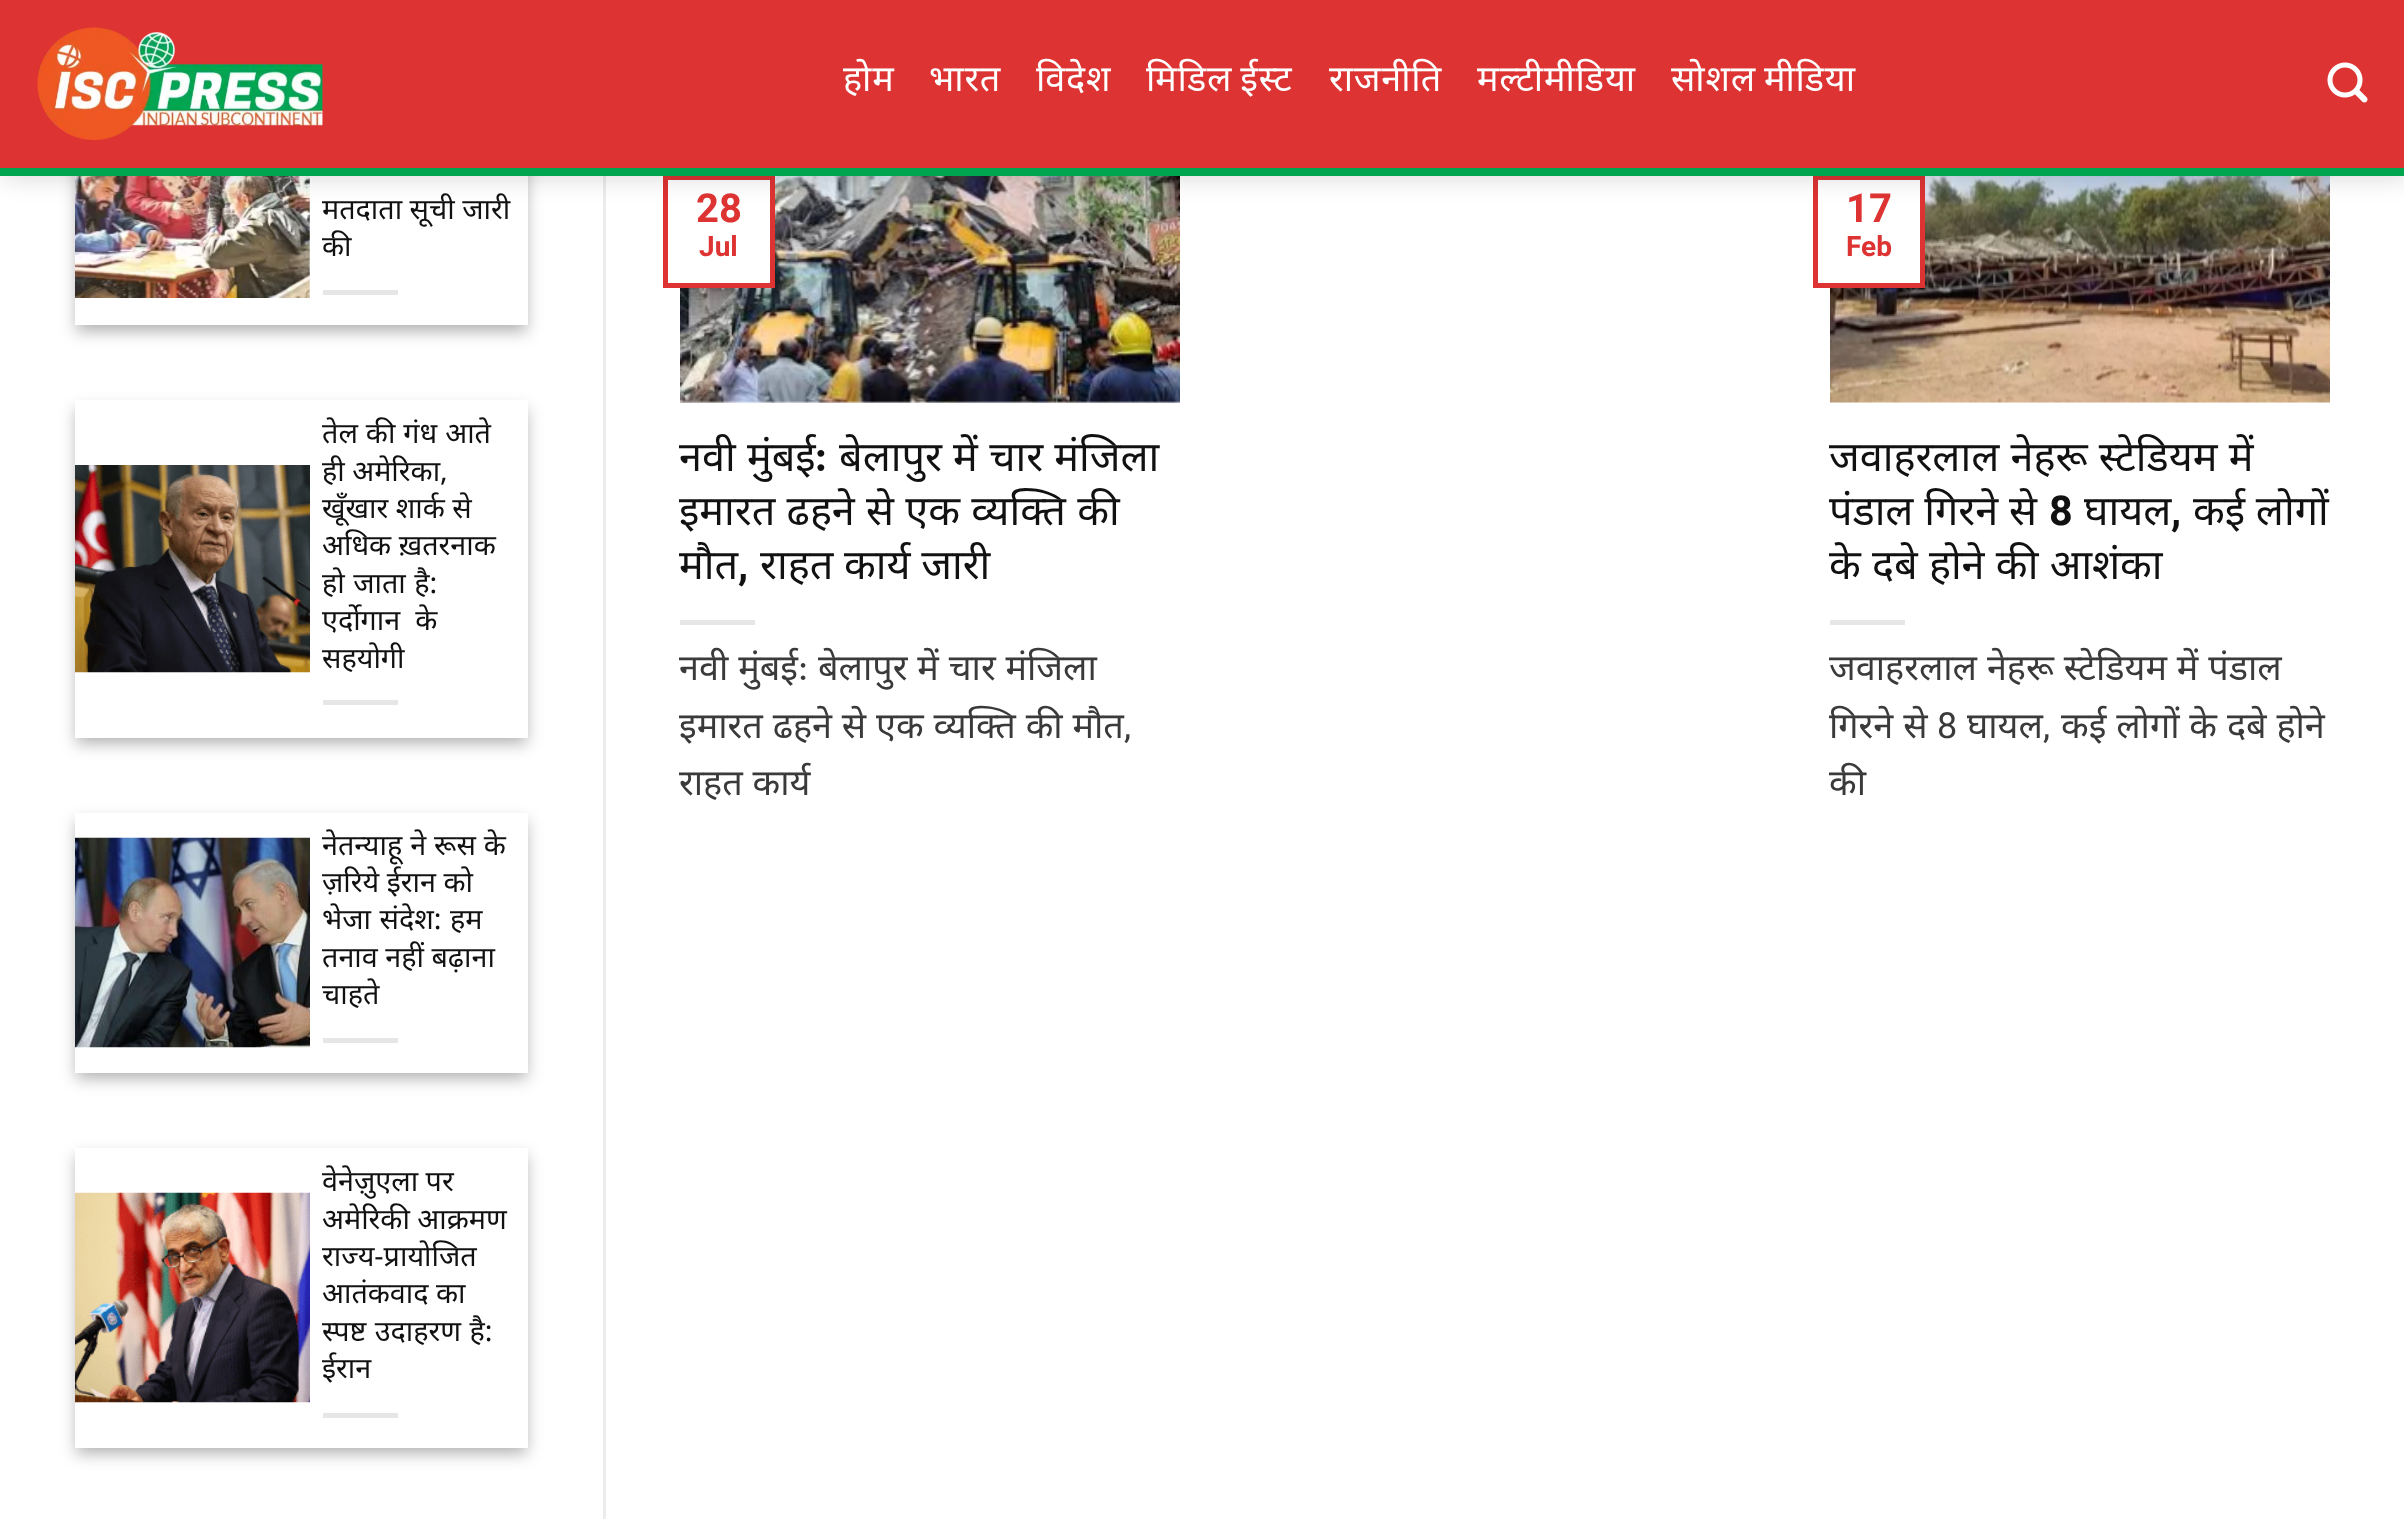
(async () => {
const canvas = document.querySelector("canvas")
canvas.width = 2404
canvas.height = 1519
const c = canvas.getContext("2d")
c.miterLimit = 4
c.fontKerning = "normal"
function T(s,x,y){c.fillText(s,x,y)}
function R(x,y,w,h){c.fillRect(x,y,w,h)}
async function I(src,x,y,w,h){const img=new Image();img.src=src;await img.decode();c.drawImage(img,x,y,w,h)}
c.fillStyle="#fff"
R(0,0,2404,1519)
c.fillStyle="#0000003b"
c.filter="blur(7.5px)"
c.beginPath()
c.rect(75,70,453,263)
c.fill()
c.filter="none"
c.fillStyle="#00000029"
c.filter="blur(7.5px)"
c.beginPath()
c.rect(85,80,433,243)
c.fill()
c.filter="none"
c.fillStyle="#fff"
R(75,176,453,149)
await I("3.png",75,176,235,122)
c.fillStyle="#ececec"
R(603,176,3,1343)
await I("7.png",680,176,500,227)
c.fillStyle="#fff"
R(680,180,90,103)
c.strokeStyle="#d33"
c.lineWidth=5
c.strokeRect(665.5,177.5,107,108)
await I("8.png",1830,176,500,227)
R(1830,180,90,103)
c.strokeRect(1815.5,177.5,107,108)
c.fillStyle="#00000026"
c.filter="blur(12.5px)"
c.beginPath()
c.rect(3,3,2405,175)
c.fill()
c.filter="none"
c.fillStyle="#d33"
R(0,0,2404,168)
c.fillStyle="#00a550"
R(0,168,2404,8)
await I("1.png",37,27,286,113)
c.letterSpacing="0.75px"
c.font="36px Noto Sans"
c.fillStyle="#fff"
T("होम",843,91)
T("भारत",929,91)
T("विदेश",1036,91)
c.wordSpacing="-2px"
T("मिडिल ईस्ट",1146,91)
c.wordSpacing="0px"
T("राजनीति",1329,91)
T("मल्टीमीडिया",1477,91)
c.wordSpacing="-2px"
T("सोशल मीडिया",1671,91)
await I("2.png",2327,62,41,41)
c.letterSpacing="0px"
c.wordSpacing="0px"
c.font="28.75px Noto Sans"
c.fillStyle="#111"
T("मतदाता सूची जारी",322,219)
T("की",322,256)
c.fillStyle="#e6e6e6"
R(323,290,75,5)
c.fillStyle="#0000003b"
c.filter="blur(7.5px)"
c.beginPath()
c.rect(75,408,453,337)
c.fill()
c.filter="none"
c.fillStyle="#00000029"
c.filter="blur(7.5px)"
c.beginPath()
c.rect(85,418,433,317)
c.fill()
c.filter="none"
c.fillStyle="#fff"
R(75,400,453,338)
await I("4.png",75,465,235,208)
c.wordSpacing="0.5px"
c.fillStyle="#111"
T("तेल की गंध आते",322,443)
c.wordSpacing="0px"
T("ही अमेरिका,",322,481)
T("खूँखार शार्क से",322,518)
T("अधिक ख़तरनाक",322,555)
c.wordSpacing="1px"
T("हो जाता है:",322,593)
c.wordSpacing="0px"
T("एर्दोगान  के",322,630)
T("सहयोगी",322,668)
c.fillStyle="#e6e6e6"
R(323,700,75,5)
c.fillStyle="#0000003b"
c.filter="blur(7.5px)"
c.beginPath()
c.rect(75,820,453,260)
c.fill()
c.filter="none"
c.fillStyle="#00000029"
c.filter="blur(7.5px)"
c.beginPath()
c.rect(85,830,433,240)
c.fill()
c.filter="none"
c.fillStyle="#fff"
R(75,813,453,260)
await I("5.png",75,837,235,211)
c.wordSpacing="0.5px"
c.fillStyle="#111"
T("नेतन्याहू ने रूस के",322,855)
c.wordSpacing="0px"
T("ज़रिये ईरान को",322,892)
c.wordSpacing="1px"
T("भेजा संदेश: हम",322,929)
c.wordSpacing="0px"
T("तनाव नहीं बढ़ाना",322,967)
T("चाहते",322,1004)
c.fillStyle="#e6e6e6"
R(323,1038,75,5)
c.fillStyle="#0000003b"
c.filter="blur(7.5px)"
c.beginPath()
c.rect(75,1155,453,300)
c.fill()
c.filter="none"
c.fillStyle="#00000029"
c.filter="blur(7.5px)"
c.beginPath()
c.rect(85,1165,433,280)
c.fill()
c.filter="none"
c.fillStyle="#fff"
R(75,1148,453,300)
await I("6.png",75,1192,235,211)
c.fillStyle="#111"
T("वेनेज़ुएला पर",322,1191)
T("अमेरिकी आक्रमण",322,1229)
T("राज्य-प्रायोजित",322,1266)
T("आतंकवाद का",322,1303)
c.wordSpacing="1px"
T("स्पष्ट उदाहरण है:",322,1341)
c.wordSpacing="0px"
T("ईरान",322,1378)
c.fillStyle="#e6e6e6"
R(323,1413,75,5)
c.font="bold 40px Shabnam"
c.fillStyle="#d33"
T("28",696,222)
c.font="bold 28px Shabnam"
T("Jul",699,256)
c.wordSpacing="0.5px"
c.font="41.4px Noto Sans"
c.fillStyle="#111"
T("नवी मुंबई",679,471)
c.wordSpacing="0px"
c.font="bold 41.4px Shabnam"
T(":",815,471)
c.wordSpacing="0.5px"
c.font="41.4px Noto Sans"
T("बेलापुर में चार मंजिला",839,471)
T("इमारत ढहने से एक व्यक्ति की",679,525)
c.wordSpacing="0px"
T("मौत",679,579)
c.font="bold 41.4px Shabnam"
T(",",738,579)
c.font="41.4px Noto Sans"
T("राहत कार्य जारी",760,579)
c.fillStyle="#e6e6e6"
R(680,620,75,5)
c.wordSpacing="0.5px"
c.font="36px Noto Sans"
c.fillStyle="#3a3a3a"
T("नवी मुंबई",679,680)
c.wordSpacing="0px"
c.font="36px Shabnam"
T(":",798,680)
c.wordSpacing="0.5px"
c.font="36px Noto Sans"
T("बेलापुर में चार मंजिला",818,680)
T("इमारत ढहने से एक व्यक्ति की मौत",679,738)
c.wordSpacing="0px"
c.font="36px Shabnam"
T(",",1124,738)
c.wordSpacing="0.5px"
c.font="36px Noto Sans"
T("राहत कार्य",679,795)
c.wordSpacing="0px"
c.font="bold 40px Shabnam"
c.fillStyle="#d33"
T("17",1846,222)
c.font="bold 28px Shabnam"
T("Feb",1846,256)
c.wordSpacing="0.5px"
c.font="41.4px Noto Sans"
c.fillStyle="#111"
T("जवाहरलाल नेहरू स्टेडियम में",1829,471)
c.wordSpacing="0px"
T("पंडाल गिरने से",1829,525)
c.font="bold 41.4px Shabnam"
T("8",2049,525)
c.font="41.4px Noto Sans"
T("घायल",2084,525)
c.font="bold 41.4px Shabnam"
T(",",2171,525)
c.font="41.4px Noto Sans"
T("कई लोगों",2193,525)
c.wordSpacing="0.5px"
T("के दबे होने की आशंका",1829,579)
c.fillStyle="#e6e6e6"
R(1830,620,75,5)
c.font="36px Noto Sans"
c.fillStyle="#3a3a3a"
T("जवाहरलाल नेहरू स्टेडियम में पंडाल",1829,680)
T("गिरने से",1829,738)
c.wordSpacing="0px"
c.font="36px Shabnam"
T("8",1937,738)
c.font="36px Noto Sans"
T("घायल",1967,738)
c.font="36px Shabnam"
T(",",2043,738)
c.wordSpacing="0.5px"
c.font="36px Noto Sans"
T("कई लोगों के दबे होने",2061,738)
c.wordSpacing="0px"
T("की",1829,795)
})()
